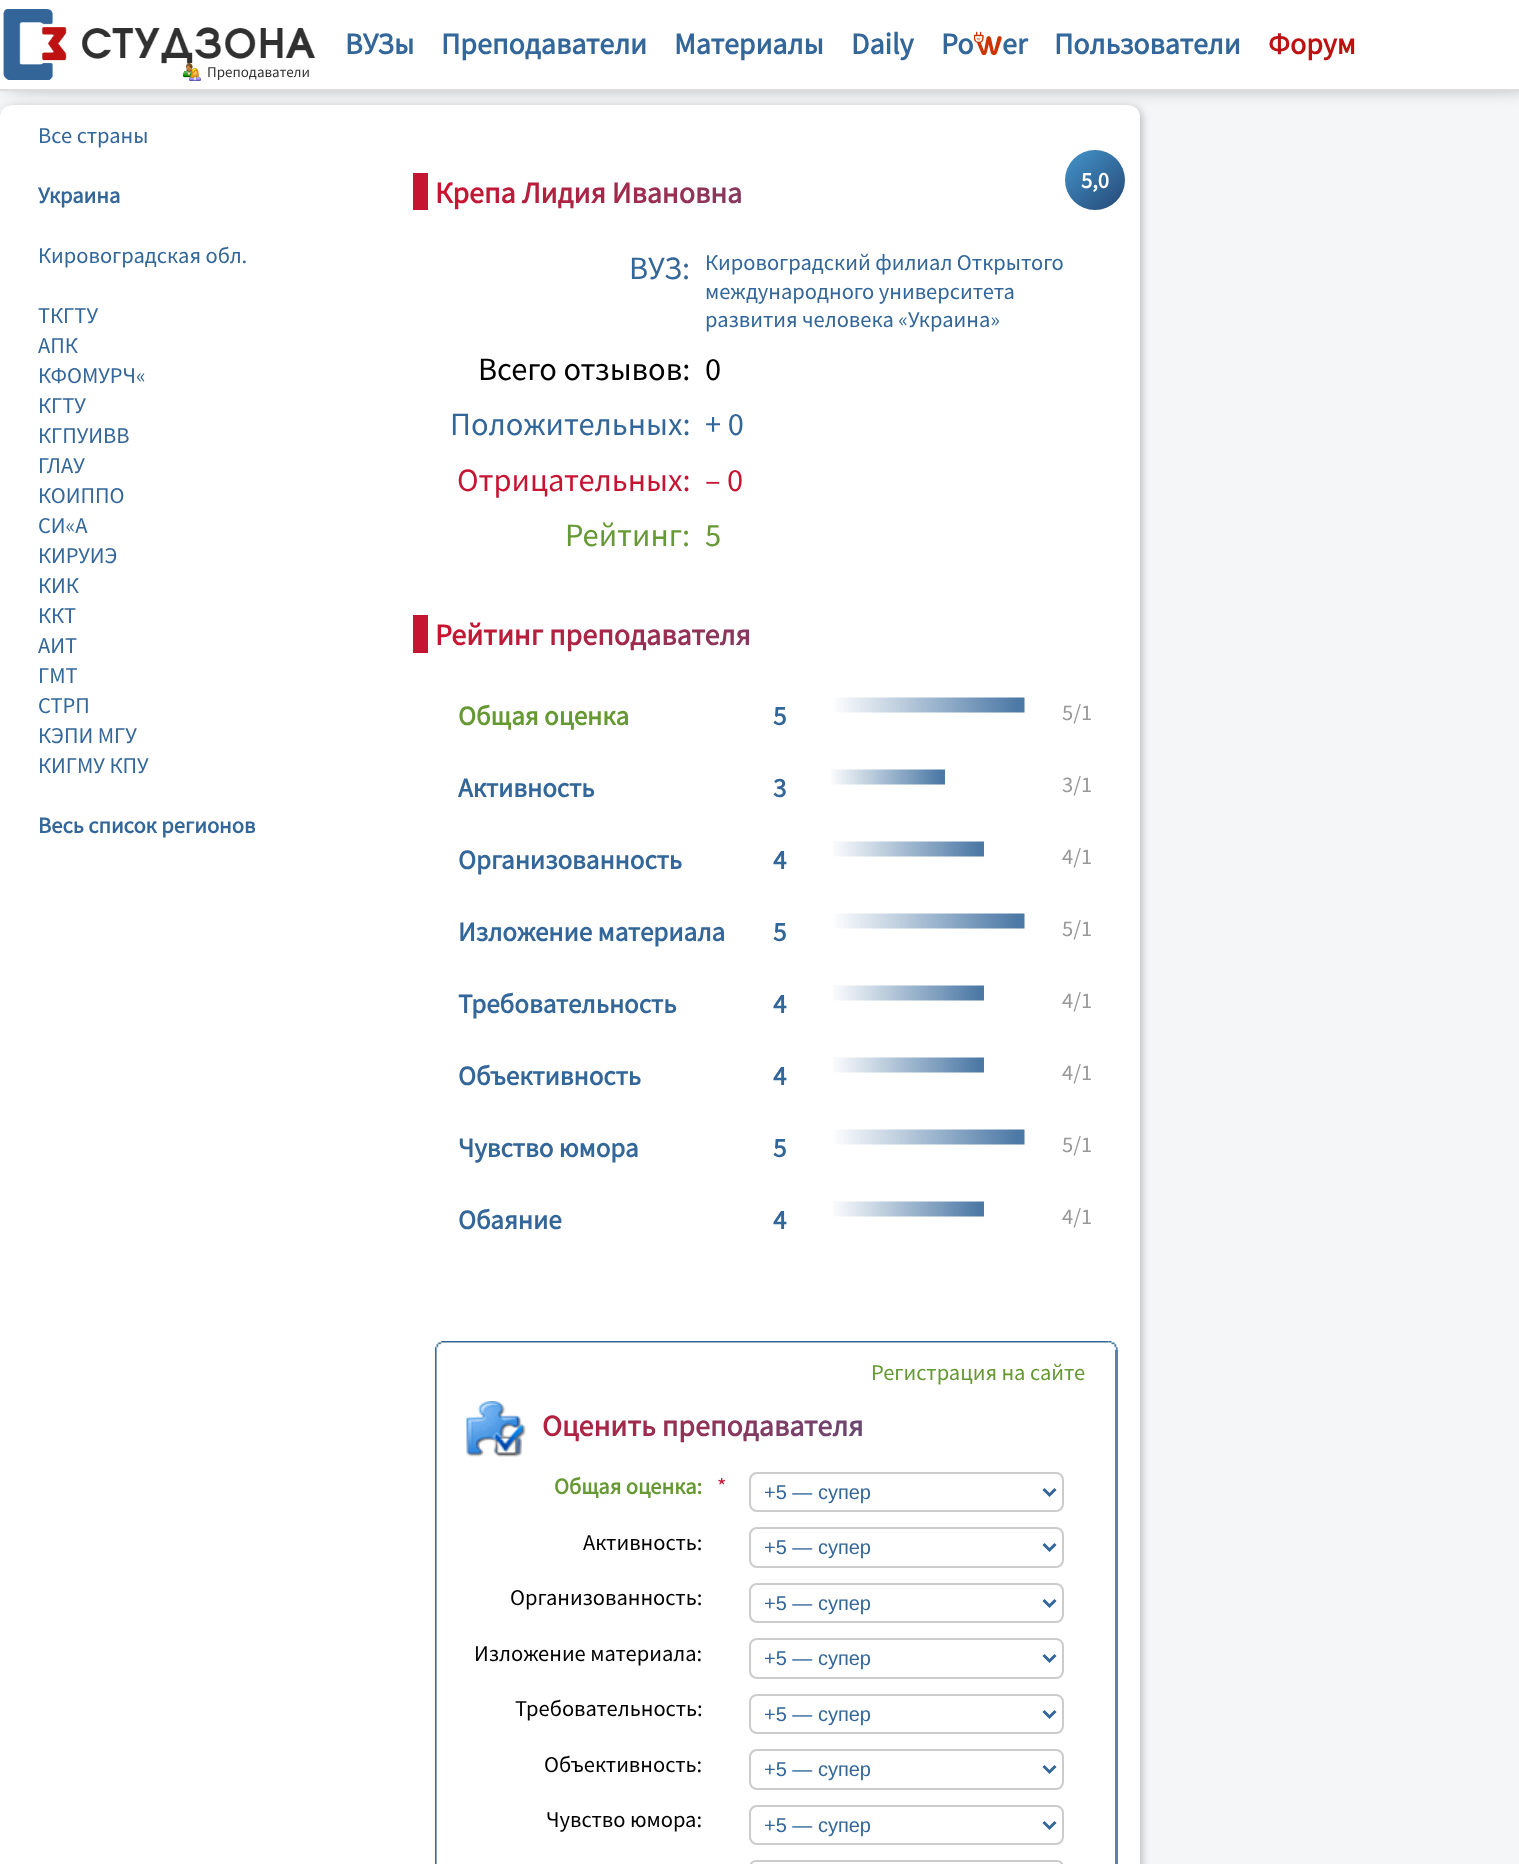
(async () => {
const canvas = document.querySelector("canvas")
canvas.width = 1519
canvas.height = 1864
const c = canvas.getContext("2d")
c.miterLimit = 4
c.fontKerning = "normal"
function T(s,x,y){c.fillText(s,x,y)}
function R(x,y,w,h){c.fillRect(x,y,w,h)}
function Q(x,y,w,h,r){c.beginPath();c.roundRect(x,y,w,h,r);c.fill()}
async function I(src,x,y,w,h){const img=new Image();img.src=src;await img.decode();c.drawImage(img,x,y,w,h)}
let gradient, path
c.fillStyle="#f4f6f8"
R(0,0,1519,1864)
c.fillStyle="#00000040"
c.filter="blur(4px)"
c.beginPath()
c.roundRect(2,107,1140,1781,12)
c.fill()
c.filter="none"
c.fillStyle="#fff"
Q(0,105,1140,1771,12)
c.fillStyle="#000"
c.filter="blur(14px)"
c.beginPath()
c.rect(11,-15,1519,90)
c.fill()
c.filter="none"
c.fillStyle="#fff"
R(0,0,1519,89)
c.fillStyle="#ddd"
R(0,89,1519,2)
c.font="bold 30px Source Sans Pro"
c.fillStyle="#369"
T("ВУЗы",345,54)
T("Преподаватели",441,54)
T("Материалы",674,54)
T("Daily",851,54)
T("Po",941,54)
await I("1.png",974,31,28,25)
T("er",1002,54)
T("Пользователи",1054,54)
c.fillStyle="#be1212"
T("Форум",1268,54)
await I("2.png",3,9,312,71)
await I("3.png",183,63,18,18)
c.font="15px Source Sans Pro"
c.fillStyle="#333"
T("Преподаватели",207,77)
c.font="22.5px Source Sans Pro"
c.fillStyle="#369"
T("Все страны",38,143)
c.font="bold 22.5px Source Sans Pro"
T("Украина",38,203)
c.font="22.5px Source Sans Pro"
T("Кировоградская обл.",38,263)
T("ТКГТУ",38,323)
T("АПК",38,353)
T("КФОМУРЧ«",38,383)
T("КГТУ",38,413)
T("КГПУИВВ",38,443)
T("ГЛАУ",38,473)
T("КОИППО",38,503)
T("СИ«А",38,533)
T("КИРУИЭ",38,563)
T("КИК",38,593)
T("ККТ",38,623)
T("АИТ",38,653)
T("ГМТ",38,683)
T("СТРП",38,713)
T("КЭПИ МГУ",38,743)
T("КИГМУ КПУ",38,773)
c.font="bold 22.5px Source Sans Pro"
T("Весь список регионов",38,833)
c.fillStyle="#c61533"
R(413,173,15,37)
c.font="bold 30px Source Sans Pro"
gradient = c.createLinearGradient(493,53,1059,329)
gradient.addColorStop(0,"#cd122d")
gradient.addColorStop(1,"#369")
c.fillStyle = gradient
T("Крепа Лидия Ивановна",435,203)
c.font="32.5px Source Sans Pro"
c.fillStyle="#369"
T("ВУЗ:",629,279)
c.font="22.5px Source Sans Pro"
T("Кировоградский филиал Открытого",705,270)
T("международного университета",705,299)
T("развития человека «Украина»",705,327)
c.font="32.5px Source Sans Pro"
c.fillStyle="#000"
T("Всего отзывов:",478,380)
T("0",705,380)
c.fillStyle="#369"
T("Положительных:",450,435)
T("+ 0",705,435)
c.fillStyle="#c61533"
T("Отрицательных:",457,491)
T("– 0",705,491)
c.fillStyle="#693"
T("Рейтинг:",565,546)
T("5",705,546)
c.fillStyle="#c61533"
R(413,615,15,38)
c.font="bold 30px Source Sans Pro"
gradient = c.createLinearGradient(493,496,1059,772)
gradient.addColorStop(0,"#cd122d")
gradient.addColorStop(1,"#369")
c.fillStyle = gradient
T("Рейтинг преподавателя",435,645)
c.font="bold 27px Source Sans Pro"
c.fillStyle="#693"
T("Общая оценка",458,725)
c.fillStyle="#369"
T("5",773,725)
await I("4.png",835,697,190,16)
c.font="22.5px Source Sans Pro"
c.fillStyle="#999"
T("5/1",1062,720)
c.font="bold 27px Source Sans Pro"
c.fillStyle="#369"
T("Активность",458,797)
T("3",773,797)
await I("5.png",831,769,114,16)
c.font="22.5px Source Sans Pro"
c.fillStyle="#999"
T("3/1",1062,792)
c.font="bold 27px Source Sans Pro"
c.fillStyle="#369"
T("Организованность",458,869)
T("4",773,869)
await I("6.png",833,841,151,16)
c.font="22.5px Source Sans Pro"
c.fillStyle="#999"
T("4/1",1062,864)
c.font="bold 27px Source Sans Pro"
c.fillStyle="#369"
T("Изложение материала",458,941)
T("5",773,941)
await I("4.png",835,913,190,16)
c.font="22.5px Source Sans Pro"
c.fillStyle="#999"
T("5/1",1062,936)
c.font="bold 27px Source Sans Pro"
c.fillStyle="#369"
T("Требовательность",458,1013)
T("4",773,1013)
await I("6.png",833,985,151,16)
c.font="22.5px Source Sans Pro"
c.fillStyle="#999"
T("4/1",1062,1008)
c.font="bold 27px Source Sans Pro"
c.fillStyle="#369"
T("Объективность",458,1085)
T("4",773,1085)
await I("6.png",833,1057,151,16)
c.font="22.5px Source Sans Pro"
c.fillStyle="#999"
T("4/1",1062,1080)
c.font="bold 27px Source Sans Pro"
c.fillStyle="#369"
T("Чувство юмора",458,1157)
T("5",773,1157)
await I("4.png",835,1129,190,16)
c.font="22.5px Source Sans Pro"
c.fillStyle="#999"
T("5/1",1062,1152)
c.font="bold 27px Source Sans Pro"
c.fillStyle="#369"
T("Обаяние",458,1229)
T("4",773,1229)
await I("6.png",833,1201,151,16)
c.font="22.5px Source Sans Pro"
c.fillStyle="#999"
T("4/1",1062,1224)
await I("7.png",435,1341,9,9)
await I("8.png",444,1341,665,2)
await I("9.png",1108,1341,10,9)
await I("10.png",435,1350,2,514)
c.fillStyle="#693"
T("Регистрация на сайте",871,1380)
await I("11.png",466,1401,61,56)
c.font="bold 30px Source Sans Pro"
gradient = c.createLinearGradient(501,1298,1036,1559)
gradient.addColorStop(0,"#cd122d")
gradient.addColorStop(1,"#369")
c.fillStyle = gradient
T("Оценить преподавателя",542,1436)
c.font="bold 22.5px Source Sans Pro"
c.fillStyle="#693"
T("Общая оценка:",554,1494)
c.font="22.5px Source Sans Pro"
c.fillStyle="#c61533"
T("*",717,1494)
c.beginPath()
c.roundRect(750,1473,313,38,7)
c.strokeStyle="#ccc"
c.lineWidth=2
c.stroke()
path = new Path2D("M1043.5 1489l6 6l6-6")
c.strokeStyle="#369"
c.lineWidth=3
c.stroke(path)
c.font="20px Liberation Sans"
c.fillStyle="#369"
T("+5 — супер",764,1499)
c.font="22.5px Source Sans Pro"
c.fillStyle="#000"
T("Активность:",583,1550)
c.beginPath()
c.roundRect(750,1528,313,39,7)
c.strokeStyle="#ccc"
c.lineWidth=2
c.stroke()
path = new Path2D("M1043.5 1544l6 6l6-6")
c.strokeStyle="#369"
c.lineWidth=3
c.stroke(path)
c.font="20px Liberation Sans"
c.fillStyle="#369"
T("+5 — супер",764,1554)
c.font="22.5px Source Sans Pro"
c.fillStyle="#000"
T("Организованность:",510,1605)
c.beginPath()
c.roundRect(750,1584,313,38,7)
c.strokeStyle="#ccc"
c.lineWidth=2
c.stroke()
path = new Path2D("M1043.5 1600l6 6l6-6")
c.strokeStyle="#369"
c.lineWidth=3
c.stroke(path)
c.font="20px Liberation Sans"
c.fillStyle="#369"
T("+5 — супер",764,1610)
c.font="22.5px Source Sans Pro"
c.fillStyle="#000"
T("Изложение материала:",474,1661)
c.beginPath()
c.roundRect(750,1639,313,39,7)
c.strokeStyle="#ccc"
c.lineWidth=2
c.stroke()
path = new Path2D("M1043.5 1655l6 6l6-6")
c.strokeStyle="#369"
c.lineWidth=3
c.stroke(path)
c.font="20px Liberation Sans"
c.fillStyle="#369"
T("+5 — супер",764,1665)
c.font="22.5px Source Sans Pro"
c.fillStyle="#000"
T("Требовательность:",515,1716)
c.beginPath()
c.roundRect(750,1695,313,38,7)
c.strokeStyle="#ccc"
c.lineWidth=2
c.stroke()
path = new Path2D("M1043.5 1711l6 6l6-6")
c.strokeStyle="#369"
c.lineWidth=3
c.stroke(path)
c.font="20px Liberation Sans"
c.fillStyle="#369"
T("+5 — супер",764,1721)
c.font="22.5px Source Sans Pro"
c.fillStyle="#000"
T("Объективность:",544,1772)
c.beginPath()
c.roundRect(750,1750,313,39,7)
c.strokeStyle="#ccc"
c.lineWidth=2
c.stroke()
path = new Path2D("M1043.5 1766l6 6l6-6")
c.strokeStyle="#369"
c.lineWidth=3
c.stroke(path)
c.font="20px Liberation Sans"
c.fillStyle="#369"
T("+5 — супер",764,1776)
c.font="22.5px Source Sans Pro"
c.fillStyle="#000"
T("Чувство юмора:",546,1827)
c.beginPath()
c.roundRect(750,1806,313,38,7)
c.strokeStyle="#ccc"
c.lineWidth=2
c.stroke()
path = new Path2D("M1043.5 1822l6 6l6-6")
c.strokeStyle="#369"
c.lineWidth=3
c.stroke(path)
c.font="20px Liberation Sans"
c.fillStyle="#369"
T("+5 — супер",764,1832)
c.beginPath()
c.roundRect(750,1861,313,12,7)
c.strokeStyle="#ccc"
c.lineWidth=2
c.stroke()
c.fillStyle="#5982ac"
R(1115,1350,3,514)
gradient = c.createLinearGradient(1067,149,1123,211)
gradient.addColorStop(0,"#4495cc")
gradient.addColorStop(1,"#254875")
c.fillStyle = gradient
c.beginPath()
c.arc(1095,180,30,0,7)
c.fill()
c.font="bold 22.5px Source Sans Pro"
c.fillStyle="#fff"
T("5,0",1081,188)
})()
